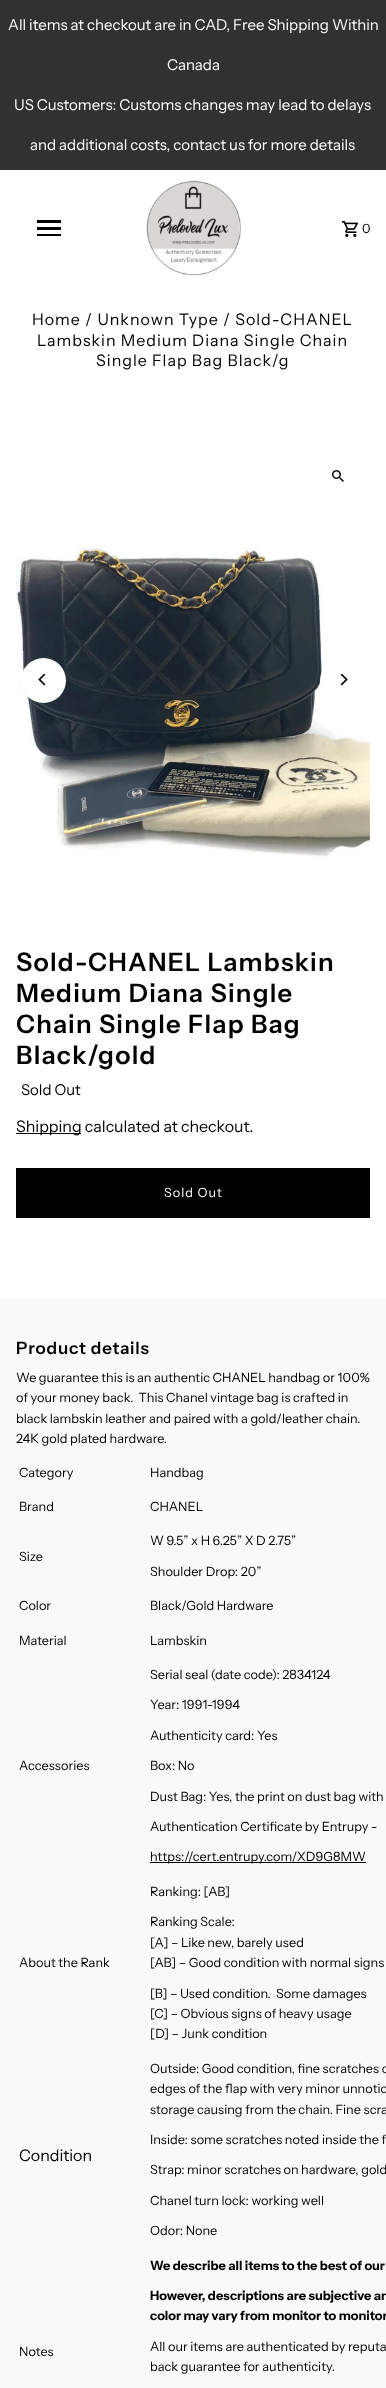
(async () => {
const canvas = document.querySelector("canvas")
canvas.width = 386
canvas.height = 2388
const c = canvas.getContext("2d")
c.miterLimit = 4
c.fontKerning = "normal"
function T(s,x,y){c.fillText(s,x,y)}
function R(x,y,w,h){c.fillRect(x,y,w,h)}
async function I(src,x,y,w,h){const img=new Image();img.src=src;await img.decode();c.drawImage(img,x,y,w,h)}
c.fillStyle="#fff"
R(0,0,386,2388)
c.fillStyle="#313131"
R(0,0,386,170)
c.font="15px Instrument Sans"
c.fillStyle="#fff"
T("All items at checkout are in CAD, Free Shipping Within",8,30)
T("Canada",167,70)
T("US Customers: Customs changes may lead to delays",14,110)
T("and additional costs, contact us for more details",30,150)
c.fillStyle="#000"
R(37,234,24,2)
R(37,227,24,3)
R(37,220,24,3)
await I("1.png",146,180,95,96)
await I("2.png",342,221,16,16)
c.letterSpacing="1px"
c.font="12.75px Instrument Sans"
T("0",362,233)
c.font="16px Instrument Sans"
T("Home / Unknown Type / Sold-CHANEL",32,325)
T("Lambskin Medium Diana Single Chain",37,346)
T("Single Flap Bag Black/g",96,366)
await I("3.png",332,470,12,12)
await I("4.png",16,547,354,310)
c.fillStyle="#fff"
c.beginPath()
c.arc(43.5,680.5,22.5,0,7)
c.fill()
await I("5.png",38,674,8,12)
c.beginPath()
c.arc(342.5,680.5,22.5,0,7)
c.fill()
await I("6.png",340,674,8,12)
c.letterSpacing="1.25px"
c.font="600 25.5px Instrument Sans"
c.fillStyle="#000"
T("Sold-CHANEL Lambskin",16,971)
T("Medium Diana Single",16,1002)
T("Chain Single Flap Bag",16,1033)
T("Black/gold",16,1064)
c.letterSpacing="0px"
c.font="15px Instrument Sans"
T("Sold Out",21,1095)
R(16,1133,65,1)
c.font="16px Instrument Sans"
T("Shipping calculated at checkout.",16,1132)
R(16,1168,354,50)
c.letterSpacing="1px"
c.font="12.75px Instrument Sans"
c.fillStyle="#fff"
T("Sold Out",164,1197)
c.fillStyle="#f9f9f9"
R(0,1298,386,1090)
c.letterSpacing="0.8px"
c.font="600 17px Instrument Sans"
c.fillStyle="#000"
T("Product details",16,1354)
c.letterSpacing="0px"
c.font="12.75px Instrument Sans"
T("We guarantee this is an authentic CHANEL handbag or 100%",16,1382)
T("of your money back.  This Chanel vintage bag is crafted in",16,1402)
T("black lambskin leather and paired with a gold/leather chain.",16,1423)
T("24K gold plated hardware.",16,1443)
T("Category",19,1477)
T("Handbag",150,1477)
T("Brand",19,1511)
T("CHANEL",150,1511)
T("Size",19,1561)
T("W 9.5” x H 6.25” X D 2.75”",150,1545)
T("Shoulder Drop: 20”",150,1576)
T("Color",19,1610)
T("Black/Gold Hardware",150,1610)
T("Material",19,1645)
T("Lambskin",150,1645)
T("Accessories",19,1770)
T("Serial seal (date code): 2834124",150,1679)
T("Year: 1991-1994",150,1709)
T("Authenticity card: Yes",150,1740)
T("Box: No",150,1770)
T("Dust Bag: Yes, the print on dust bag with",150,1801)
T("Authentication Certificate by Entrupy -",150,1831)
R(150,1862,216,1)
T("https://cert.entrupy.com/XD9G8MW",150,1861)
T("About the Rank",19,1967)
T("Ranking: [AB]",150,1896)
T("Ranking Scale:",150,1926)
T("[A] – Like new, barely used",150,1947)
T("[AB] – Good condition with normal signs",150,1967)
T("[B] – Used condition.",150,1998)
T("Some damages",276,1998)
T("[C] – Obvious signs of heavy usage",150,2018)
T("[D] – Junk condition",150,2038)
c.font="16px Instrument Sans"
T("Condition",19,2161)
c.font="12.75px Instrument Sans"
T("Outside: Good condition, fine scratches o",150,2073)
T("edges of the flap with very minor unnotic",150,2093)
T("storage causing from the chain. Fine scra",150,2114)
T("Inside: some scratches noted inside the f",150,2144)
T("Strap: minor scratches on hardware, gold",150,2174)
T("Chanel turn lock: working well",150,2205)
T("Odor: None",150,2235)
T("Notes",19,2356)
c.font="bold 12.75px Instrument Sans"
T("We describe all items to the best of our",150,2270)
T("However, descriptions are subjective an",150,2300)
T("color may vary from monitor to monitor",150,2320)
c.font="12.75px Instrument Sans"
T("All our items are authenticated by reputa",150,2351)
T("back guarantee for authenticity.",150,2371)
})()
